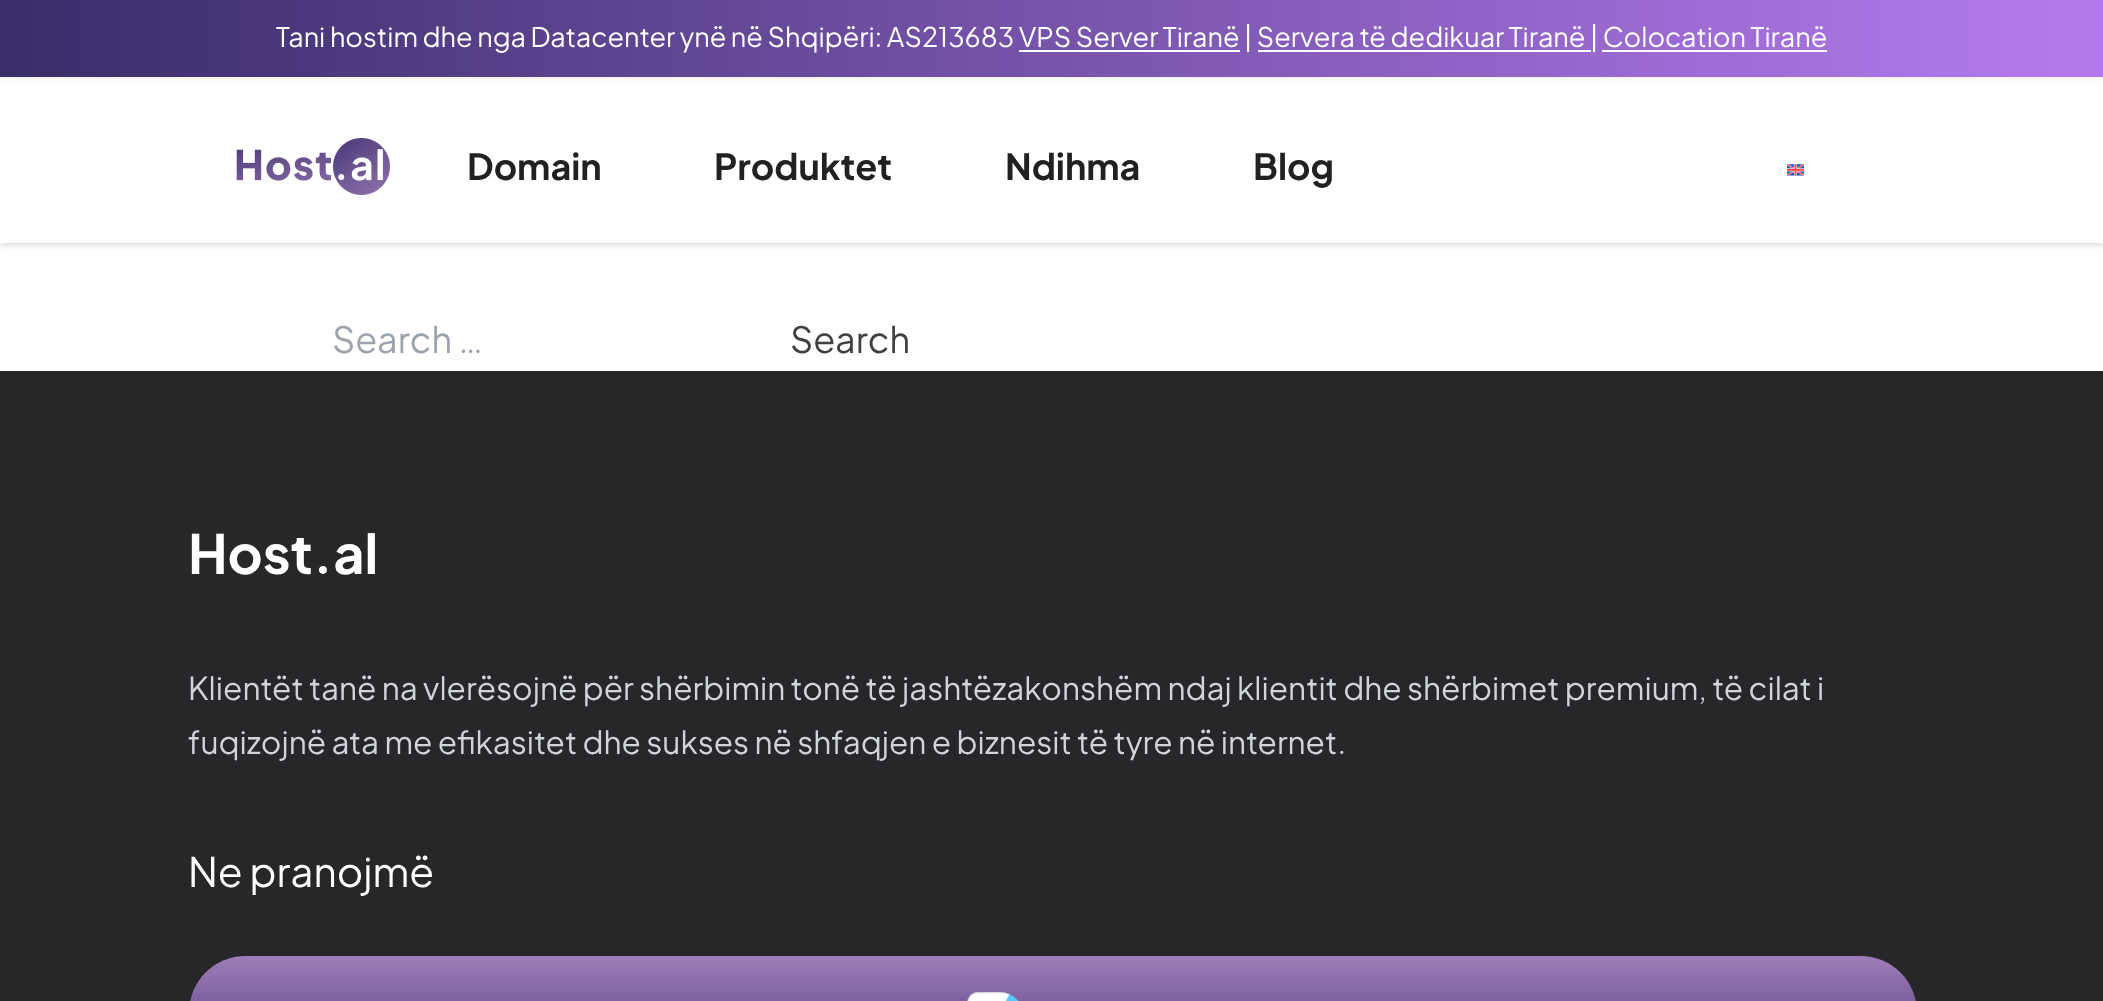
(async () => {
const canvas = document.querySelector("canvas")
canvas.width = 2103
canvas.height = 1001
const c = canvas.getContext("2d")
c.miterLimit = 4
c.fontKerning = "normal"
function T(s,x,y){c.fillText(s,x,y)}
function R(x,y,w,h){c.fillRect(x,y,w,h)}
function Q(x,y,w,h,r){c.beginPath();c.roundRect(x,y,w,h,r);c.fill()}
async function I(src,x,y,w,h){const img=new Image();img.src=src;await img.decode();c.drawImage(img,x,y,w,h)}
let gradient
c.fillStyle="#fff"
R(0,0,2103,1001)
c.fillStyle="#0000001a"
c.filter="blur(3.5px)"
c.beginPath()
c.rect(0,0,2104,243)
c.fill()
c.filter="none"
c.filter="blur(3.5px)"
c.beginPath()
c.rect(0,2,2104,243)
c.fill()
c.filter="none"
c.fillStyle="#fff"
R(0,77,2103,166)
c.fillStyle="#0000000d"
c.filter="blur(2px)"
c.beginPath()
c.rect(0,2,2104,77)
c.fill()
c.filter="none"
gradient = c.createLinearGradient(0,38,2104,38)
gradient.addColorStop(0,"#392d69")
gradient.addColorStop(1,"#b57bee")
c.fillStyle = gradient
R(0,0,2103,77)
c.font="27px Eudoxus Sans"
c.fillStyle="#fff"
T("Tani hostim dhe nga Datacenter ynë në Shqipëri: AS213683 VPS Server Tiranë | Servera të dedikuar Tiranë | Colocation Tiranë",276,47)
R(1019,50,221,2)
R(1258,50,333,2)
R(1602,50,225,2)
await I("1.png",236,138,154,57)
c.font="bold 36px Eudoxus Sans"
c.fillStyle="#212121"
T("Domain",467,180)
T("Produktet",714,180)
T("Ndihma",1005,180)
T("Blog",1253,180)
await I("2.png",1787,164,17,12)
c.font="36px Eudoxus Sans"
c.fillStyle="#9ca3af"
T("Search …",332,353)
c.fillStyle="#404040"
T("Search",790,353)
c.fillStyle="#27272a"
R(0,371,2103,630)
c.font="bold 54px Eudoxus Sans"
c.fillStyle="#fff"
T("Host.al",188,574)
c.font="31.5px Eudoxus Sans"
c.fillStyle="#d1d5db"
T("Klientët tanë na vlerësojnë për shërbimin tonë të jashtëzakonshëm ndaj klientit dhe shërbimet premium, të cilat i",188,700)
T("fuqizojnë ata me efikasitet dhe sukses në shfaqjen e biznesit të tyre në internet.",188,754)
c.font="40.5px Eudoxus Sans"
c.fillStyle="#fff"
T("Ne pranojmë",188,887)
gradient = c.createLinearGradient(1053,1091,1053,956)
gradient.addColorStop(0,"#382d69")
gradient.addColorStop(1,"#9f7db9")
c.fillStyle = gradient
Q(189,956,1728,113,67.5)
await I("3.png",967,992,52,9)
})()
